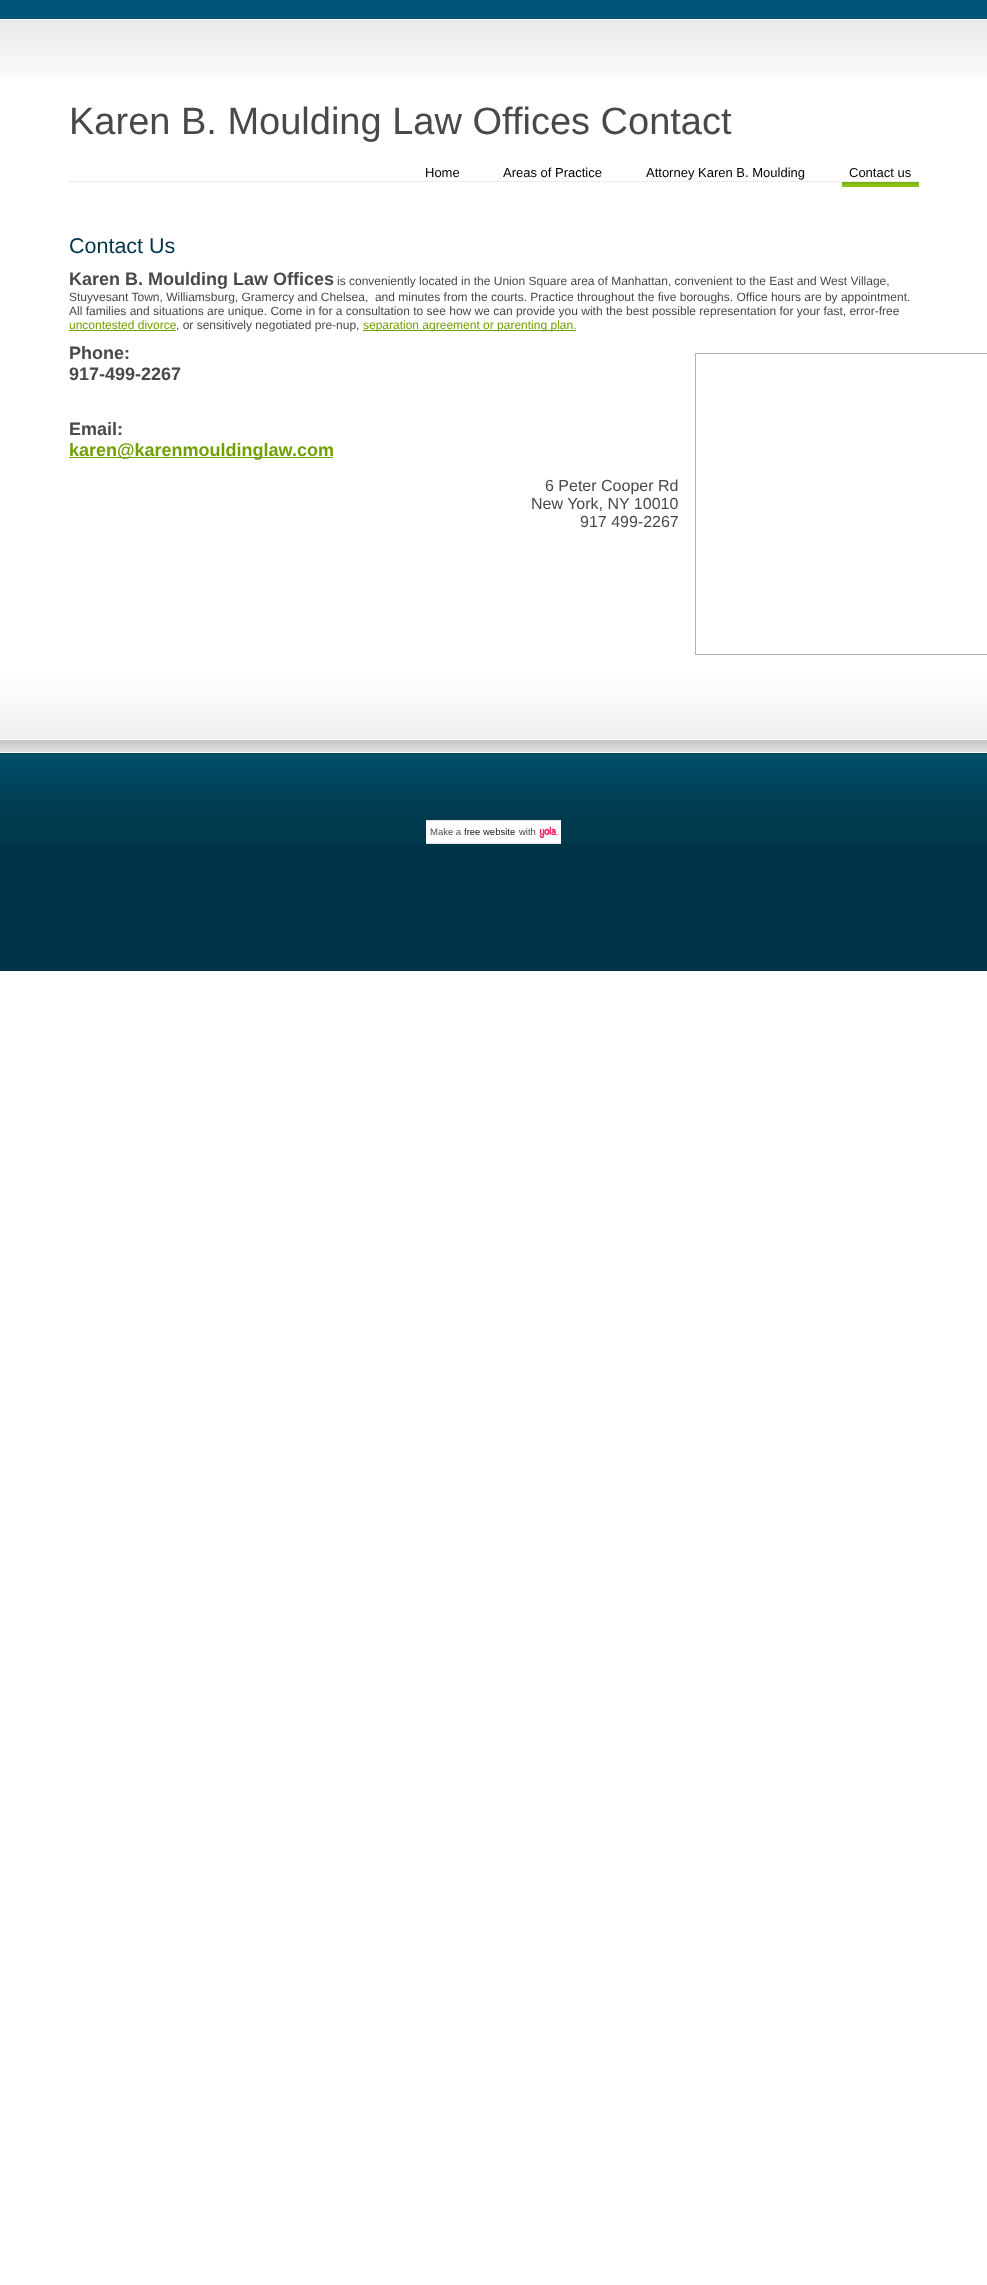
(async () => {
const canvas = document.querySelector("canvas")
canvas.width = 987
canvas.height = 2285
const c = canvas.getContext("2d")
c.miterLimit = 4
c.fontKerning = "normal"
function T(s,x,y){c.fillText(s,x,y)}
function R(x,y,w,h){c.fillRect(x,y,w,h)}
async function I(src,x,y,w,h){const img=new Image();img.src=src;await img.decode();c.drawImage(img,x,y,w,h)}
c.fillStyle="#fff"
R(0,0,987,2285)
await I("1.png",0,0,987,77)
await I("2.png",69,181,849,1)
c.font="38px Liberation Sans"
c.fillStyle="#494949"
T("Karen B. Moulding Law Offices Contact",69,134)
c.font="13px Liberation Sans"
c.fillStyle="#000"
T("Home",425,177)
T("Areas of Practice",503,177)
T("Attorney Karen B. Moulding",646,177)
await I("3.png",842,182,77,5)
T("Contact us",849,177)
c.font="21.5px Liberation Sans"
c.fillStyle="#003448"
T("Contact Us",69,253)
c.font="bold 18px Liberation Sans"
c.fillStyle="#494949"
T("Karen B. Moulding Law Offices",69,285)
c.font="12px Liberation Sans"
T("is conveniently located in the Union Square area of Manhattan, convenient to the East and West Village,",337,285)
T("Stuyvesant Town, Williamsburg, Gramercy and Chelsea,  and minutes from the courts. Practice throughout the five boroughs. Office hours are by appointment.",69,301)
T("All families and situations are unique. Come in for a consultation to see how we can provide you with the best possible representation for your fast, error-free",69,315)
c.fillStyle="#709f00"
T("uncontested divorce",69,329)
R(69,330,107,1)
c.fillStyle="#494949"
T(", or sensitively negotiated pre-nup,",176,329)
c.fillStyle="#709f00"
R(363,330,213,1)
T("separation agreement or parenting plan.",363,329)
c.font="bold 18px Liberation Sans"
c.fillStyle="#494949"
T("Phone:",69,359)
T("917-499-2267",69,380)
T("Email:",69,435)
c.fillStyle="#709f00"
R(69,457,264,1)
T("karen@karenmouldinglaw.com",69,456)
c.font="16px Liberation Sans"
c.fillStyle="#494949"
T("6 Peter Cooper Rd",545,491)
T("New York, NY 10010",531,509)
T("917 499-2267",580,527)
c.strokeStyle="#b4b4b4"
c.strokeRect(695.5,353.5,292,301)
c.fillStyle="#003448"
R(0,842,987,129)
await I("4.png",0,671,987,171)
c.fillStyle="#fff"
R(426,821,135,22)
await I("5.png",539,826,20,13)
c.fillStyle="#e1e1e1"
R(426,820,135,1)
R(426,843,135,1)
c.font="9.5px Liberation Sans"
c.fillStyle="#494949"
T("Make a",430,835)
c.fillStyle="#222"
T("free website",464,835)
c.fillStyle="#494949"
T("with",519,835)
})()
